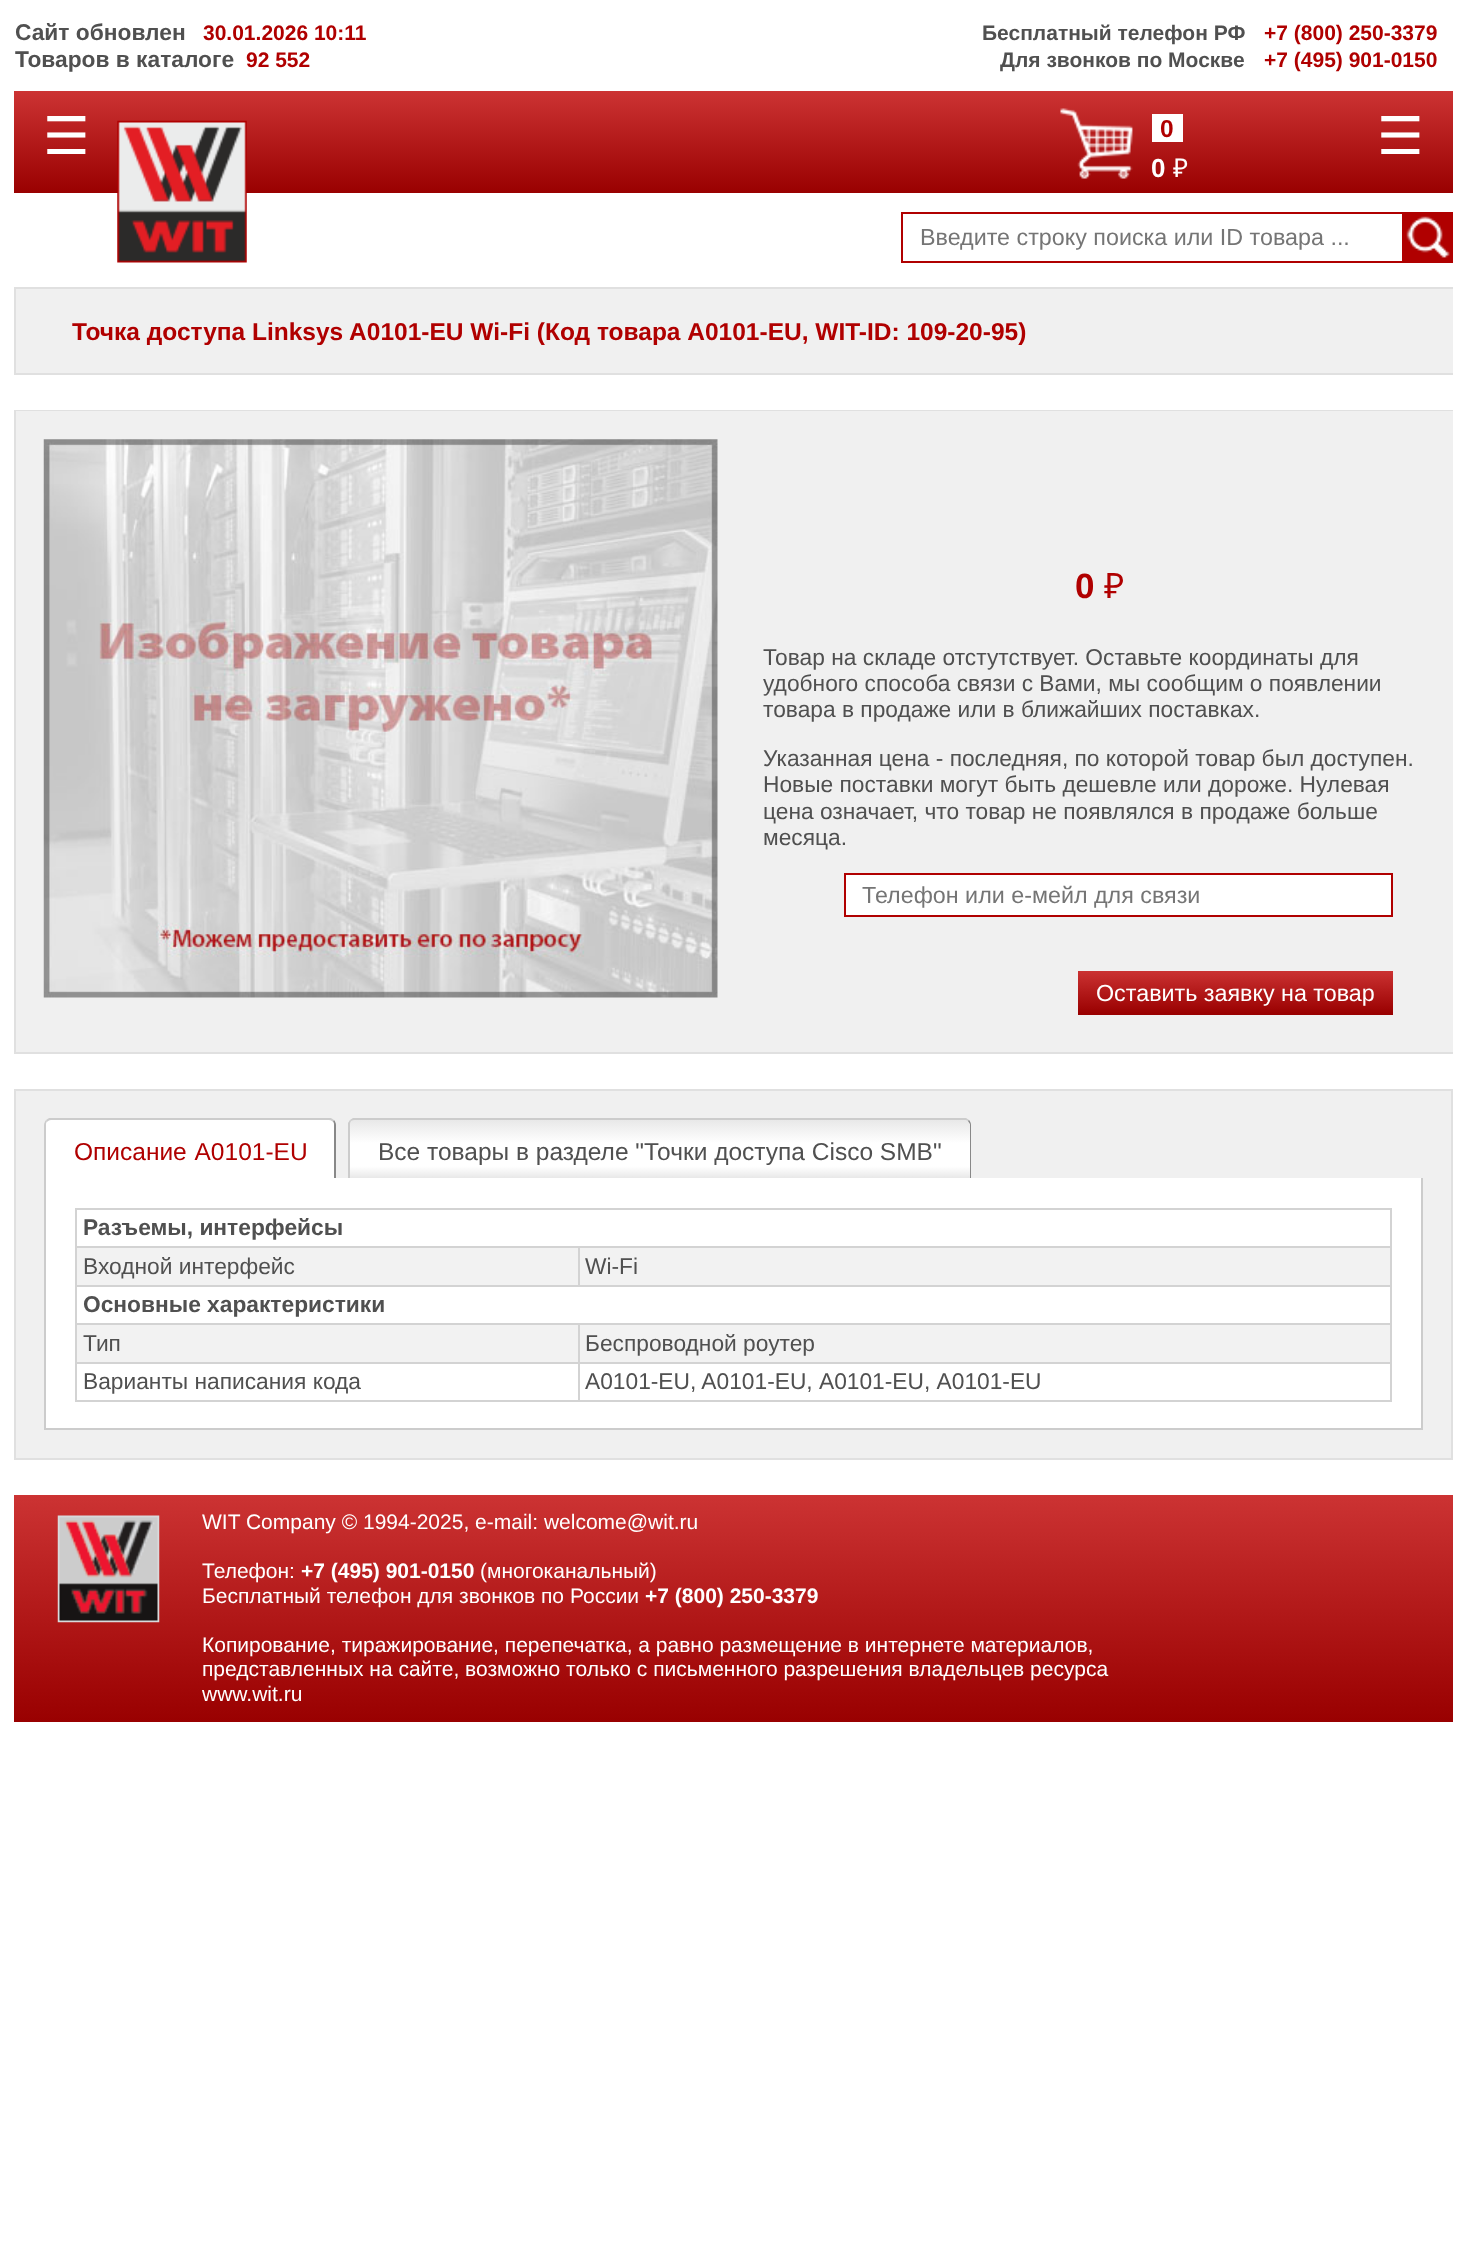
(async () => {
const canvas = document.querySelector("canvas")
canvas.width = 1465
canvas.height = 2254
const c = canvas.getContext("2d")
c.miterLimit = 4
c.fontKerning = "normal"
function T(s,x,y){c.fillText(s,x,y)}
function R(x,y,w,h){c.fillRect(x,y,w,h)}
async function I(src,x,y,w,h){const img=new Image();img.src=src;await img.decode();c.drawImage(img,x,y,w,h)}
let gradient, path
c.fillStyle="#fff"
R(0,0,1465,2254)
c.font="bold 22.75px Liberation Sans"
c.fillStyle="#505050"
T("Сайт обновлен",15,40)
c.font="bold 21px Liberation Sans"
c.fillStyle="#b00000"
T("30.01.2026 10:11",203,40)
c.font="bold 22.75px Liberation Sans"
c.fillStyle="#505050"
T("Товаров в каталоге",15,67)
c.font="bold 21px Liberation Sans"
c.fillStyle="#b00000"
T("92 552",246,67)
c.fillStyle="#505050"
T("Бесплатный телефон РФ",982,40)
c.fillStyle="#b00000"
T("+7 (800) 250-3379",1264,40)
c.fillStyle="#505050"
T("Для звонков по Москве",1000,67)
c.fillStyle="#b00000"
T("+7 (495) 901-0150",1264,67)
gradient = c.createLinearGradient(733,91,733,193)
gradient.addColorStop(0,"#c33")
gradient.addColorStop(1,"#900")
c.fillStyle = gradient
R(14,91,1439,102)
c.font="52px DejaVu Sans"
c.fillStyle="#fff"
T("☰",43,154)
await I("1.png",117,120,130,143)
await I("2.png",1060,108,73,71)
R(1152,114,31,28)
c.font="bold 24.5px Liberation Sans"
c.fillStyle="#b00000"
T("0",1160,137)
c.font="bold 26px Liberation Sans"
c.fillStyle="#fff"
T("0",1151,177)
c.font="26px Noto Sans"
T("₽",1173,177)
c.font="52px DejaVu Sans"
T("☰",1377,154)
c.strokeStyle="#b00000"
c.lineWidth=2
c.strokeRect(902,213,550,49)
c.font="23.3px Liberation Sans"
c.fillStyle="#757575"
T("Введите строку поиска или ID товара ...",920,245)
c.fillStyle="#b00000"
R(1402,214,49,47)
await I("3.png",1406,216,44,42)
c.fillStyle="#f0f0f0"
R(16,289,1437,84)
c.save()
c.beginPath()
c.rect(14,0,1439,1722)
c.clip()
c.strokeStyle="#e0e0e0"
c.strokeRect(15,288,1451,86)
c.restore()
c.font="bold 24.5px Liberation Sans"
c.fillStyle="#b00000"
T("Точка доступа Linksys A0101-EU Wi-Fi (Код товара A0101-EU, WIT-ID: 109-20-95)",72,340)
c.save()
c.beginPath()
c.rect(14,0,1439,1722)
c.clip()
c.strokeStyle="#e0e0e0"
c.strokeRect(15,411,1440,642)
c.restore()
c.fillStyle="#f0f0f0"
R(16,411,1437,641)
await I("4.png",43,439,675,559)
c.font="bold 35px Liberation Sans"
c.fillStyle="#b00000"
T("0",1075,598)
c.font="35px Noto Sans"
T("₽",1104,598)
c.font="22.75px Liberation Sans"
c.fillStyle="#505050"
T("Товар на складе отстутствует. Оставьте координаты для",763,665)
T("удобного способа связи с Вами, мы сообщим о появлении",763,691)
T("товара в продаже или в ближайших поставках.",763,717)
T("Указанная цена - последняя, по которой товар был доступен.",763,766)
T("Новые поставки могут быть дешевле или дороже. Нулевая",763,792)
T("цена означает, что товар не появлялся в продаже больше",763,819)
T("месяца.",763,845)
c.fillStyle="#fff"
c.beginPath()
c.rect(845,874,547,42)
c.fill()
c.stroke()
c.font="23.3px Liberation Sans"
c.fillStyle="#757575"
T("Телефон или е-мейл для связи",862,903)
gradient = c.createLinearGradient(1236,970,1236,1014)
gradient.addColorStop(0,"#c33")
gradient.addColorStop(1,"#900")
c.fillStyle = gradient
R(1078,971,315,44)
c.fillStyle="#fff"
T("Оставить заявку на товар",1096,1001)
c.fillStyle="#f0f0f0"
c.beginPath()
c.rect(15,1090,1437,369)
c.fill()
c.strokeStyle="#e0e0e0"
c.stroke()
c.fillStyle="#fff"
c.beginPath()
c.roundRect(44,1118,292,60,[7,7,0,0])
c.fill()
c.fillStyle="#ccc"
path = new Path2D("M51 1120c-2 0-3 1-4 2l-1-2l3-2h282l3 2l-1 2c-1-1-2-2-4-2z")
c.fill(path)
c.fillStyle="#888"
path = new Path2D("M334 1178v-53c0-1 0-3-1-3l1-2c1 1 2 3 2 5v53z")
c.fill(path)
c.fillStyle="#ccc"
path = new Path2D("M44 1178v-53c0-2 1-4 2-5l1 2c-1 0-1 2-1 3v53z")
c.fill(path)
c.wordSpacing="1px"
c.font="24.5px Liberation Sans"
c.fillStyle="#b00000"
T("Описание A0101-EU",74,1160)
c.save()
c.beginPath()
c.roundRect(348,1118,623,60,[7,7,0,0])
c.clip()
gradient = c.createLinearGradient(660,1120,660,1178)
gradient.addColorStop(0,"#e8e8e8")
gradient.addColorStop(.4,"#fff")
gradient.addColorStop(.8,"#fff")
gradient.addColorStop(1,"#e8e8e8")
c.fillStyle = gradient
R(348,1120,623,58)
c.restore()
c.fillStyle="#ccc"
path = new Path2D("M355 1120c-1 0-3 0-4 1l-1-1l3-2h613l3 2l-1 1c-1-1-2-1-4-1z")
c.fill(path)
c.fillStyle="#888"
path = new Path2D("M970 1178v-54l-2-3l1-1c1 1 2 3 2 5v53z")
c.fill(path)
c.fillStyle="#ccc"
path = new Path2D("M348 1178v-55l2-3l1 1c-1 1-1 3-1 4v53z")
c.fill(path)
c.wordSpacing="0px"
c.fillStyle="#505050"
T("Все товары в разделе \"Точки доступа Cisco SMB\"",378,1160)
c.fillStyle="#fff"
R(46,1178,1375,250)
c.fillStyle="#ccc"
R(1421,1178,2,252)
R(44,1428,1379,2)
R(44,1178,2,252)
c.fillStyle="#d3d3d3"
R(75,1208,1316,2)
R(578,1246,813,2)
R(75,1285,1316,2)
R(578,1323,813,2)
R(578,1362,813,2)
R(1390,1362,2,40)
R(1390,1323,2,40)
R(1390,1285,2,40)
R(1390,1246,2,40)
R(1390,1208,2,40)
c.fillStyle="#f2f2f2"
R(77,1248,1313,37)
c.fillStyle="#d3d3d3"
R(578,1246,2,40)
R(75,1246,504,2)
c.fillStyle="#f2f2f2"
R(77,1325,1313,37)
c.fillStyle="#d3d3d3"
R(578,1400,813,2)
R(578,1362,2,40)
R(75,1362,504,2)
R(578,1323,2,40)
R(75,1323,504,2)
R(75,1400,504,2)
R(75,1362,2,40)
R(75,1323,2,40)
R(75,1285,2,40)
R(75,1246,2,40)
R(75,1208,2,40)
c.font="bold 22.75px Liberation Sans"
c.fillStyle="#505050"
T("Разъемы, интерфейсы",83,1235)
c.font="22.75px Liberation Sans"
T("Входной интерфейс",83,1274)
T("Wi-Fi",585,1274)
c.font="bold 22.75px Liberation Sans"
T("Основные характеристики",83,1312)
c.font="22.75px Liberation Sans"
T("Тип",83,1351)
T("Беспроводной роутер",585,1351)
T("Варианты написания кода",83,1389)
T("A0101-EU, A0101-EU, А0101-EU, А0101-ЕU",585,1389)
gradient = c.createLinearGradient(733,1495,733,1722)
gradient.addColorStop(0,"#c33")
gradient.addColorStop(1,"#900")
c.fillStyle = gradient
R(14,1495,1439,227)
await I("5.png",57,1515,103,108)
c.font="21px Liberation Sans"
c.fillStyle="#fff"
T("WIT Company © 1994-2025, e-mail: welcome@wit.ru",202,1529)
T("Телефон:",202,1578)
c.font="bold 21px Liberation Sans"
T("+7 (495) 901-0150",301,1578)
c.font="21px Liberation Sans"
T("(многоканальный)",480,1578)
T("Бесплатный телефон для звонков по России",202,1603)
c.font="bold 21px Liberation Sans"
T("+7 (800) 250-3379",645,1603)
c.font="21px Liberation Sans"
T("Копирование, тиражирование, перепечатка, а равно размещение в интернете материалов,",202,1652)
T("представленных на сайте, возможно только с письменного разрешения владельцев ресурса",202,1676)
T("www.wit.ru",202,1701)
})()
